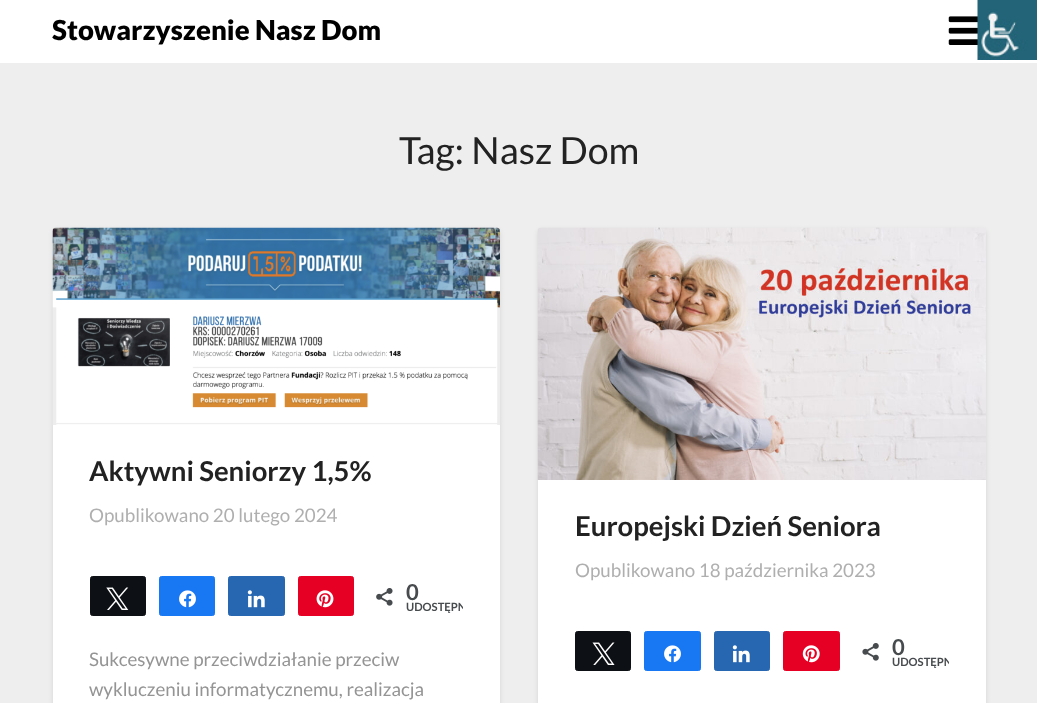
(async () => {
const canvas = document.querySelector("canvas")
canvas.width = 1037
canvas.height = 703
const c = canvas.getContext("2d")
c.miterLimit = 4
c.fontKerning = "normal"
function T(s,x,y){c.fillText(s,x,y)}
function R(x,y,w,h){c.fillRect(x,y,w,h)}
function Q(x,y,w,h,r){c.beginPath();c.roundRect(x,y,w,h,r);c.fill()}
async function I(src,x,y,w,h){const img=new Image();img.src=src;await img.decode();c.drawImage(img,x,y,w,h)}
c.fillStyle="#eee"
R(0,0,1037,703)
c.fillStyle="#fff"
R(0,0,1037,63)
c.font="900 27.5px Lato"
c.fillStyle="#000"
T("Stowarzyszenie Nasz Dom",52,40)
await I("1.png",948,16,30,29)
c.font="37.5px Lato"
c.fillStyle="#222"
T("Tag: Nasz Dom",399,164)
c.fillStyle="#0000001a"
c.filter="blur(2.5px)"
c.beginPath()
c.roundRect(53,230,447,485,4)
c.fill()
c.filter="none"
c.fillStyle="#fff"
Q(53,228,447,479,4)
await I("2.png",52,227,448,198)
c.font="bold 27.5px Lato"
c.fillStyle="#222"
T("Aktywni Seniorzy 1,5%",89,481)
c.font="18.75px Lato"
c.fillStyle="#afafaf"
T("Opublikowano 20 lutego 2024",89,522)
c.fillStyle="#0d1014"
c.beginPath()
c.roundRect(90.5,576.5,55,39,2)
c.fill()
c.strokeStyle="#0d1014"
c.stroke()
await I("3.png",106,587,23,23)
c.fillStyle="#1877f2"
c.beginPath()
c.roundRect(159.5,576.5,55,39,2)
c.fill()
c.strokeStyle="#1877f2"
c.stroke()
await I("4.png",179,590,17,18)
c.fillStyle="#2767b1"
c.beginPath()
c.roundRect(228.5,576.5,56,39,2)
c.fill()
c.strokeStyle="#2767b1"
c.stroke()
await I("5.png",247,590,18,18)
c.fillStyle="#e60023"
c.beginPath()
c.roundRect(298.5,576.5,55,39,2)
c.fill()
c.strokeStyle="#e60023"
c.stroke()
await I("6.png",316,590,18,18)
await I("7.png",376,588,17,18)
c.font="bold 22px Lato"
c.fillStyle="#474b4d"
T("0",406,600)
c.save()
c.beginPath()
c.rect(90,576,373,43)
c.clip()
c.font="bold 11.25px Lato"
T("UDOSTĘPN",406,611)
c.restore()
c.font="18.75px Lato"
c.fillStyle="#949494"
T("Sukcesywne przeciwdziałanie przeciw",89,666)
T("wykluczeniu informatycznemu, realizacja",89,696)
c.fillStyle="#0000001a"
c.filter="blur(2.5px)"
c.beginPath()
c.roundRect(538,230,448,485,4)
c.fill()
c.filter="none"
c.fillStyle="#fff"
Q(538,228,448,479,4)
await I("8.png",537,227,449,253)
c.font="bold 27.5px Lato"
c.fillStyle="#222"
T("Europejski Dzień Seniora",575,536)
c.font="18.75px Lato"
c.fillStyle="#afafaf"
T("Opublikowano 18 października 2023",575,577)
c.fillStyle="#0d1014"
c.beginPath()
c.roundRect(575.5,631.5,55,39,2)
c.fill()
c.strokeStyle="#0d1014"
c.stroke()
await I("9.png",592,642,23,23)
c.fillStyle="#1877f2"
c.beginPath()
c.roundRect(644.5,631.5,56,39,2)
c.fill()
c.strokeStyle="#1877f2"
c.stroke()
await I("4.png",664,645,17,18)
c.fillStyle="#2767b1"
c.beginPath()
c.roundRect(714.5,631.5,55,39,2)
c.fill()
c.strokeStyle="#2767b1"
c.stroke()
await I("5.png",732,645,18,18)
c.fillStyle="#e60023"
c.beginPath()
c.roundRect(783.5,631.5,56,39,2)
c.fill()
c.strokeStyle="#e60023"
c.stroke()
await I("10.png",802,645,18,18)
await I("11.png",862,643,17,18)
c.font="bold 22px Lato"
c.fillStyle="#474b4d"
T("0",892,655)
c.save()
c.beginPath()
c.rect(575,631,374,43)
c.clip()
c.font="bold 11.25px Lato"
T("UDOSTĘPN",892,666)
c.restore()
await I("12.png",977,0,60,60)
})()
